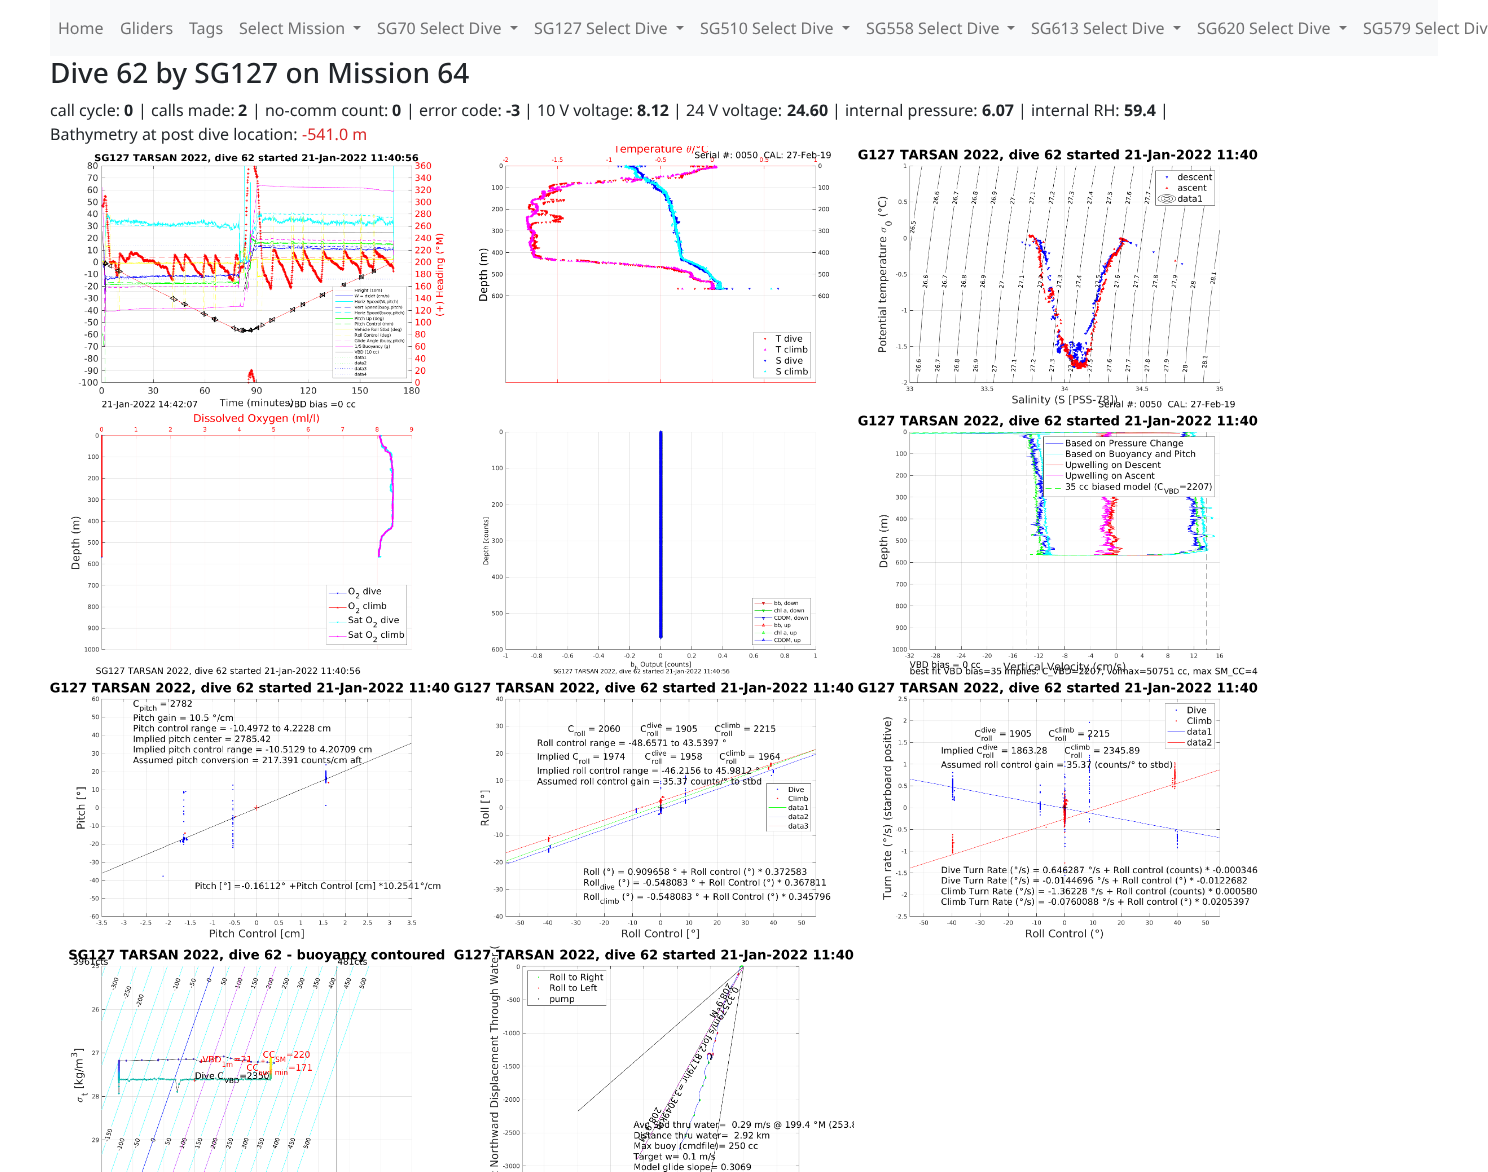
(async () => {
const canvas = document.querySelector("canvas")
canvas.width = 1488
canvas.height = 1172
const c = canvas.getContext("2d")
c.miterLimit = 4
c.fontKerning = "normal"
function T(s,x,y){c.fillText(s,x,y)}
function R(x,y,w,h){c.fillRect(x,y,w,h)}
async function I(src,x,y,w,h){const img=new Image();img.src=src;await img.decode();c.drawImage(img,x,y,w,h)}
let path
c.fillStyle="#fff"
R(0,0,1488,1172)
c.fillStyle="#f8f9fa"
R(50,0,1388,56)
c.font="16px Noto Sans"
c.fillStyle="#707071"
T("Home",58,34)
T("Gliders",120,34)
T("Tags",189,34)
T("Select Mission",239,34)
path = new Path2D("M353 26h8l-4 4z")
c.fill(path)
T("SG70 Select Dive",377,34)
path = new Path2D("M510 26h8l-4 4z")
c.fill(path)
T("SG127 Select Dive",534,34)
path = new Path2D("M676 26h8l-4 4z")
c.fill(path)
T("SG510 Select Dive",700,34)
path = new Path2D("M842 26h8l-4 4z")
c.fill(path)
T("SG558 Select Dive",866,34)
path = new Path2D("M1007 26h8l-4 4z")
c.fill(path)
T("SG613 Select Dive",1031,34)
path = new Path2D("M1173 26h8l-4 4z")
c.fill(path)
T("SG620 Select Dive",1197,34)
path = new Path2D("M1339 26h8l-4 4z")
c.fill(path)
T("SG579 Select Div",1363,34)
c.font="500 28px Noto Sans"
c.fillStyle="#212529"
T("Dive 62 by SG127 on Mission 64",50,83)
c.font="16px Noto Sans"
T("call cycle:",50,116)
c.font="bold 16px Noto Sans"
T("0",124,116)
c.font="16px Noto Sans"
T("| calls made:",138,116)
c.font="bold 16px Noto Sans"
T("2",238,116)
c.font="16px Noto Sans"
T("| no-comm count:",252,116)
c.font="bold 16px Noto Sans"
T("0",392,116)
c.font="16px Noto Sans"
T("| error code:",406,116)
c.font="bold 16px Noto Sans"
T("-3",506,116)
c.font="16px Noto Sans"
T("| 10 V voltage:",524,116)
c.font="bold 16px Noto Sans"
T("8.12",637,116)
c.font="16px Noto Sans"
T("| 24 V voltage:",673,116)
c.font="bold 16px Noto Sans"
T("24.60",787,116)
c.font="16px Noto Sans"
T("| internal pressure:",832,116)
c.font="bold 16px Noto Sans"
T("6.07",982,116)
c.font="16px Noto Sans"
T("| internal RH:",1018,116)
c.font="bold 16px Noto Sans"
T("59.4",1124,116)
c.font="16px Noto Sans"
T("|",1160,116)
T("Bathymetry at post dive location:",50,140)
c.fillStyle="#d92727"
T("-541.0 m",302,140)
await I("1.png",78,154,367,255)
await I("2.png",479,146,352,237)
await I("3.png",858,149,400,259)
await I("4.png",71,413,343,263)
await I("5.png",483,429,334,246)
await I("6.png",858,415,400,262)
await I("7.png",50,682,400,257)
await I("8.png",454,682,400,257)
await I("9.png",858,682,400,257)
await I("10.png",69,949,376,223)
await I("11.png",454,946,400,226)
})()
